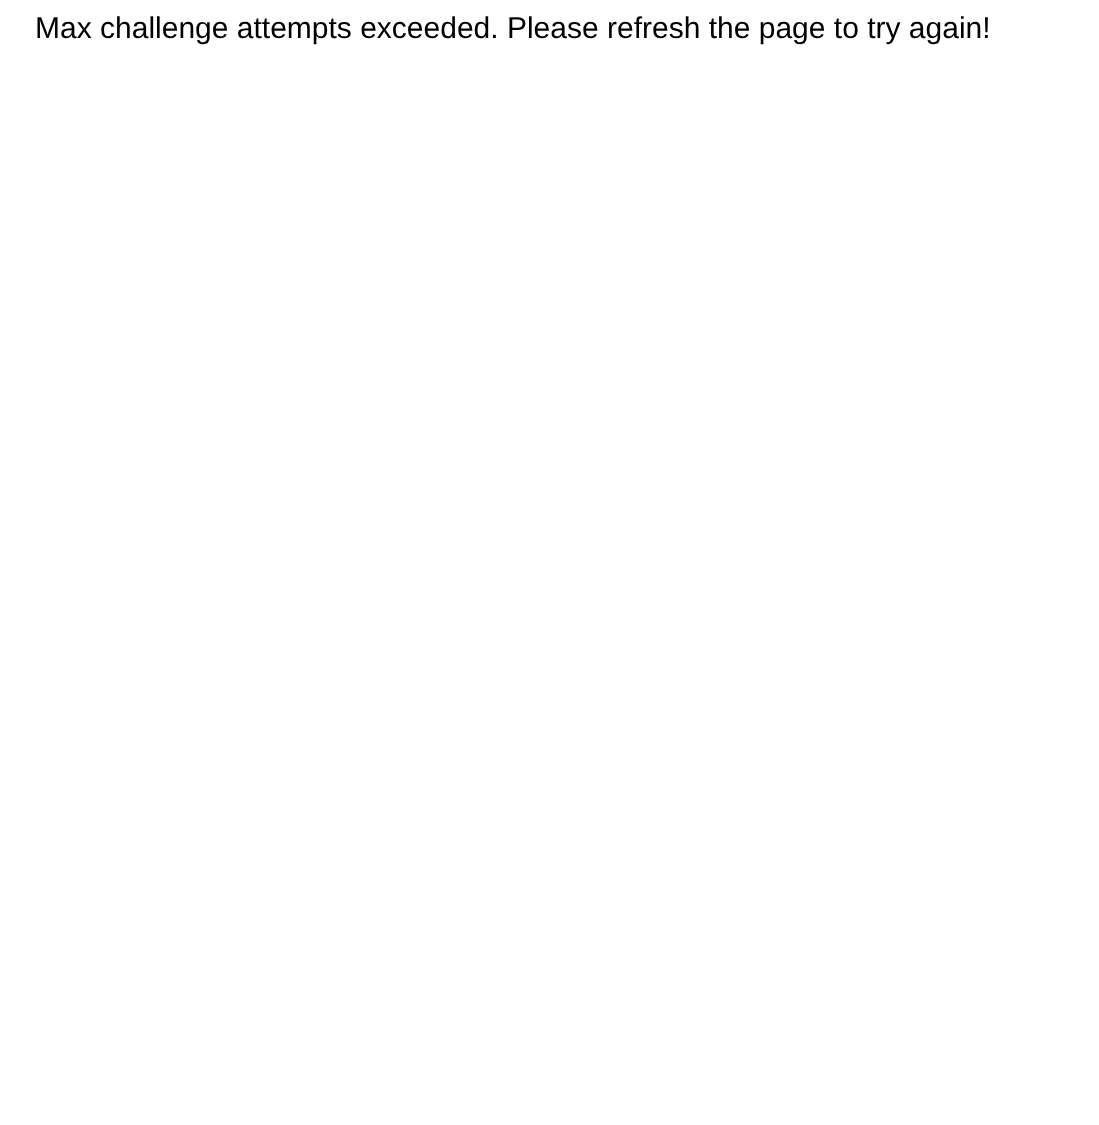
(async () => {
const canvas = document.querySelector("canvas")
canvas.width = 1099
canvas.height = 1125
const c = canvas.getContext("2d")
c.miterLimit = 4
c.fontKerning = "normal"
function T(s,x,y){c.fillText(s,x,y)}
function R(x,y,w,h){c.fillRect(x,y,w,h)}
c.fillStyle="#fff"
R(0,0,1099,1125)
c.font="30px Liberation Sans"
c.fillStyle="#000"
T("Max challenge attempts exceeded. Please refresh the page to try again!",35,38)
})()
